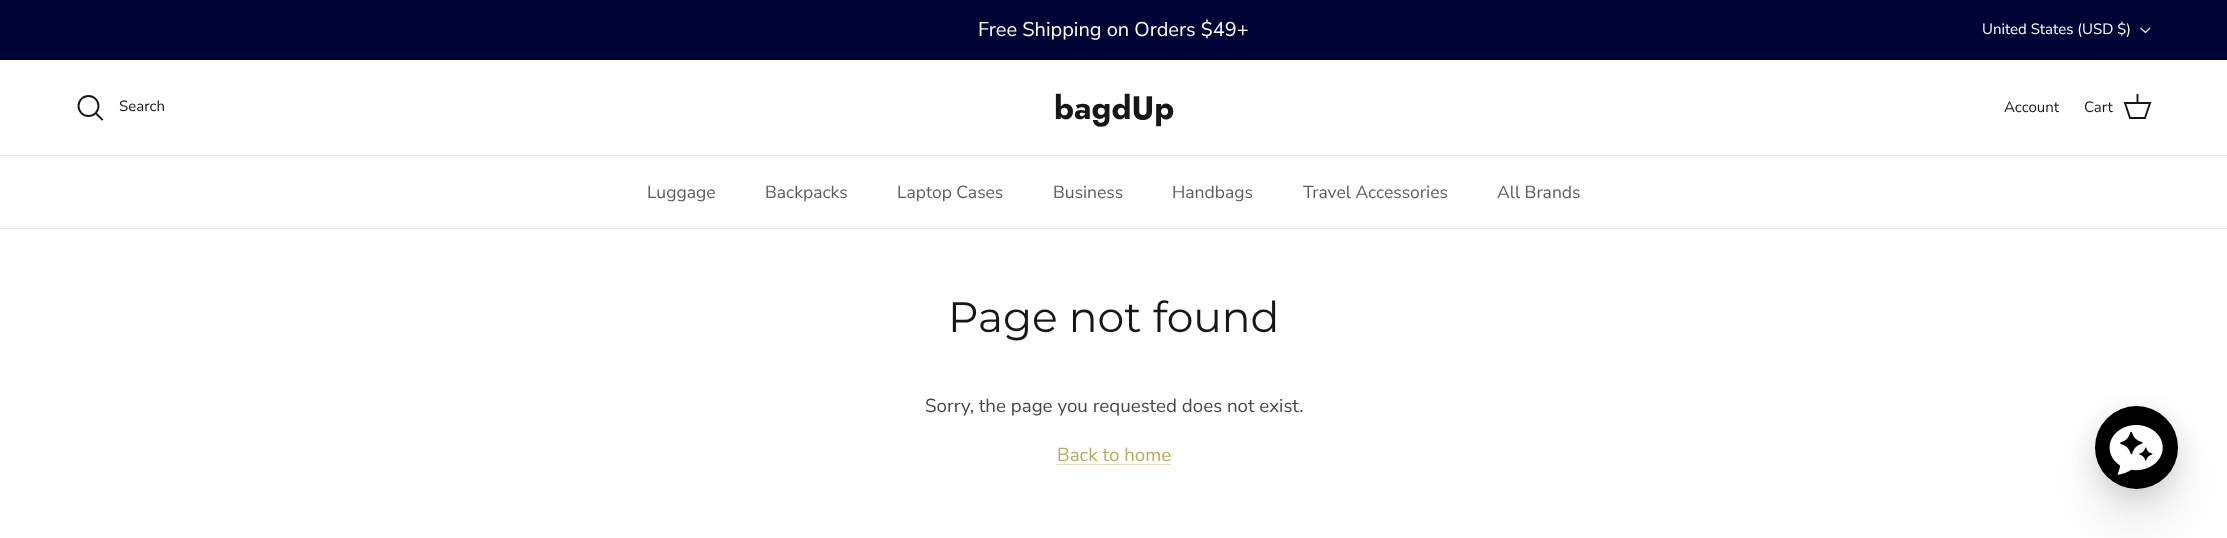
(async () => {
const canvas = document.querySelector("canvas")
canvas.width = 2227
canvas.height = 538
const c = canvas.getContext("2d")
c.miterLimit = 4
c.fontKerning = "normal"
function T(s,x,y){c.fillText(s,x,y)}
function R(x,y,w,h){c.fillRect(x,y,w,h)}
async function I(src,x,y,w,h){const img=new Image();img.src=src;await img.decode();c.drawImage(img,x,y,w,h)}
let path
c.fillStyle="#fff"
R(0,0,2227,538)
c.fillStyle="#000435"
R(0,0,2227,60)
c.font="20px Nunito Sans"
c.fillStyle="#fff"
T("Free Shipping on Orders $49+",978,36)
c.font="15px Nunito Sans"
T("United States (USD $)",1982,34)
path = new Path2D("M2150 28l-4.5 4.5l-5-4.5")
c.strokeStyle="#fff"
c.lineWidth=1.2
c.stroke(path)
c.fillStyle="#dfe3e8"
R(0,155,2227,1)
c.beginPath()
c.arc(88.5,106,10,0,7)
c.strokeStyle="#171717"
c.lineWidth=1.9
c.stroke()
c.fillStyle="#171717"
T("Search",119,111)
path = new Path2D("M96 113.5l6 6")
c.lineCap="square"
c.stroke(path)
c.font="bold 32.5px Jost"
T("bagdUp",1054,119)
c.font="15px Nunito Sans"
T("Account",2004,112)
T("Cart",2084,112)
path = new Path2D("M2125 103h25l-5 15h-15z")
c.lineCap="butt"
c.stroke(path)
path = new Path2D("M2137.5 102.5v-7.5")
c.lineCap="square"
c.stroke(path)
c.fillStyle="#dfe3e8"
R(0,228,2227,1)
c.font="17.5px Nunito Sans"
c.fillStyle="#5c5c5c"
T("Luggage",647,198)
T("Backpacks",765,198)
T("Laptop Cases",897,198)
T("Business",1053,198)
T("Handbags",1172,198)
T("Travel Accessories",1303,198)
T("All Brands",1497,198)
c.font="42.5px Montserrat"
c.fillStyle="#171717"
T("Page not found",948,332)
c.font="18.75px Nunito Sans"
c.fillStyle="#474747"
T("Sorry, the page you requested does not exist.",925,412)
c.fillStyle="#b5ad5b"
T("Back to home",1057,461)
c.fillStyle="#e1debd"
R(1056,464,115,1)
c.fillStyle="#00000040"
c.filter="blur(31px)"
c.beginPath()
c.roundRect(2110,453,53,52,26)
c.fill()
c.filter="none"
c.fillStyle="#0000001f"
c.filter="blur(12px)"
c.beginPath()
c.roundRect(2095,414,83,82,41)
c.fill()
c.filter="none"
c.fillStyle="#000"
c.beginPath()
c.arc(2136.5,447.5,41.5,0,7)
c.fill()
await I("1.png",2109,425,54,50)
})()
